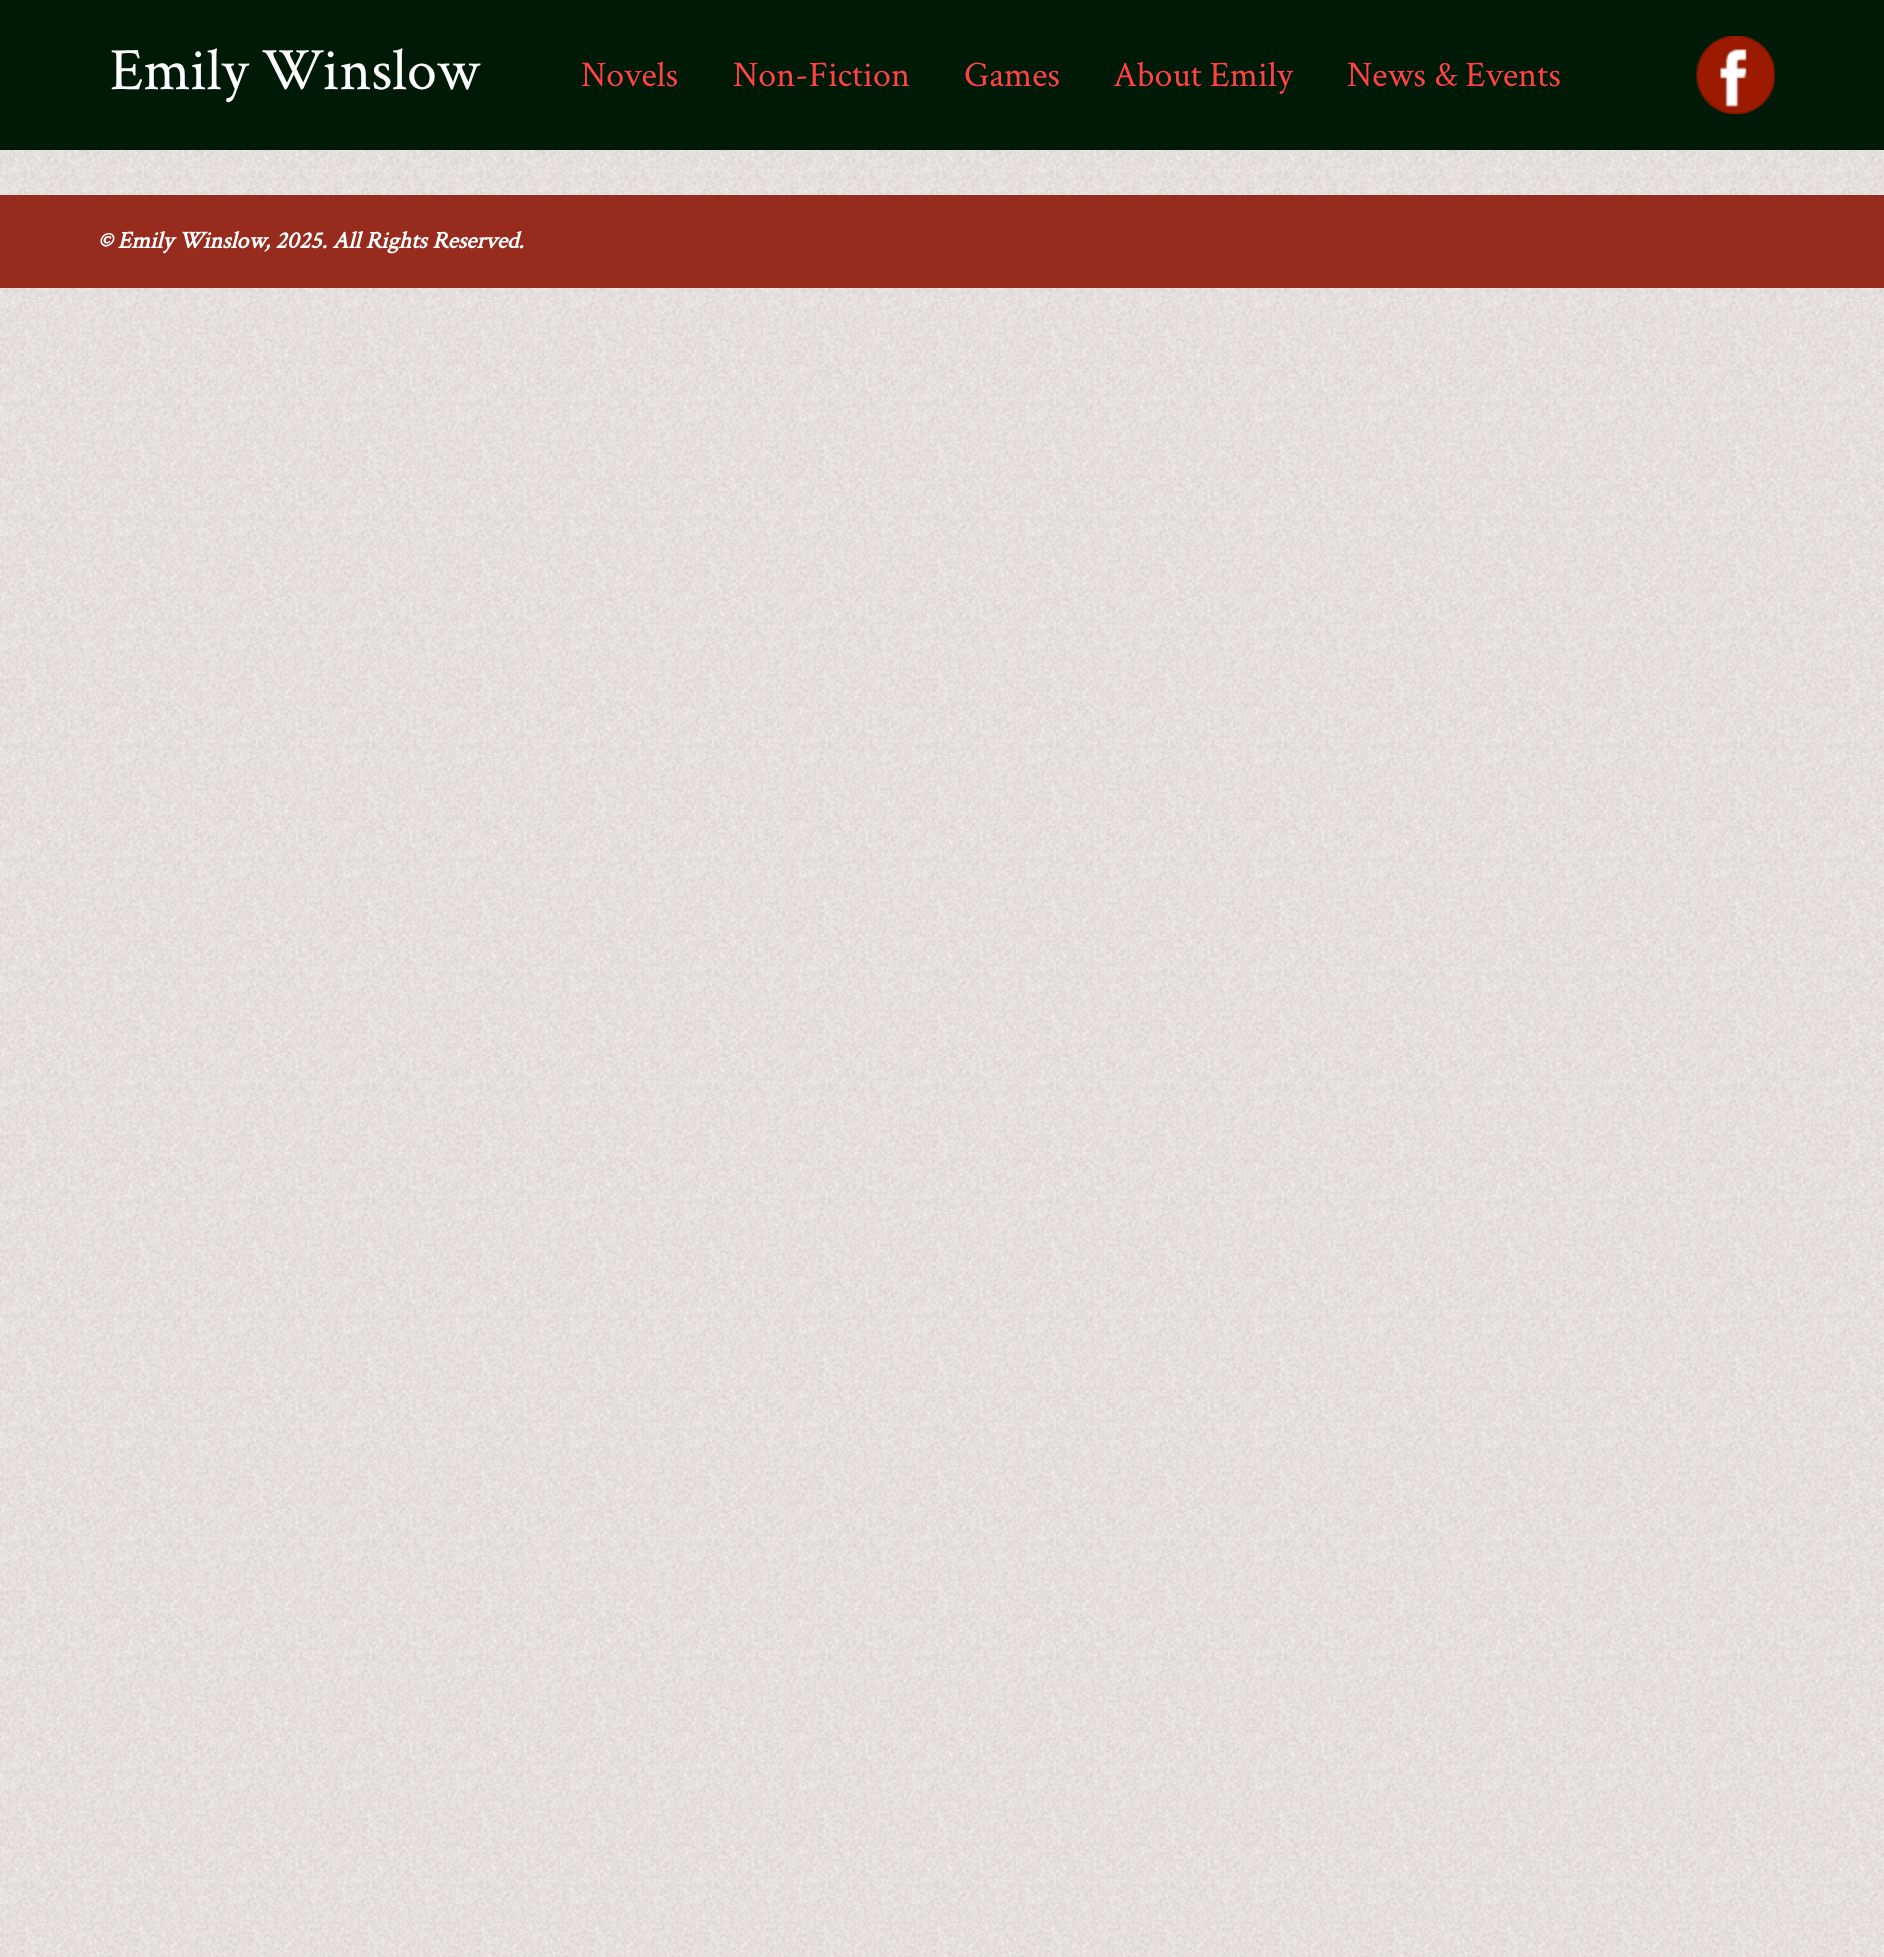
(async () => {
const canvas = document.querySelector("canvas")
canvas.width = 1884
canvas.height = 1957
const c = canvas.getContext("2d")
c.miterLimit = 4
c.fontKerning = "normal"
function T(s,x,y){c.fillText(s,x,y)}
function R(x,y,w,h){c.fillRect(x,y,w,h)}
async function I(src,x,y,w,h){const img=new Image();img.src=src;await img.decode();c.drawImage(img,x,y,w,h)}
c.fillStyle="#fff"
R(0,0,1884,1957)
await I("1.png",0,150,1884,1807)
c.fillStyle="#001a08"
R(0,0,1884,150)
c.font="60px Crimson Text"
c.fillStyle="#fff"
T("Emily Winslow",110,89)
c.font="36px Crimson Text"
c.fillStyle="#ff4242"
T("Novels",581,86)
T("Non-Fiction",733,86)
T("Games",964,86)
T("About Emily",1113,86)
T("News & Events",1347,86)
await I("2.png",1696,36,79,78)
c.fillStyle="#962b1e"
R(0,195,1884,93)
c.font="italic bold 24px Crimson Text"
c.fillStyle="#fff"
T("© Emily Winslow, 2025. All Rights Reserved.",98,248)
})()
